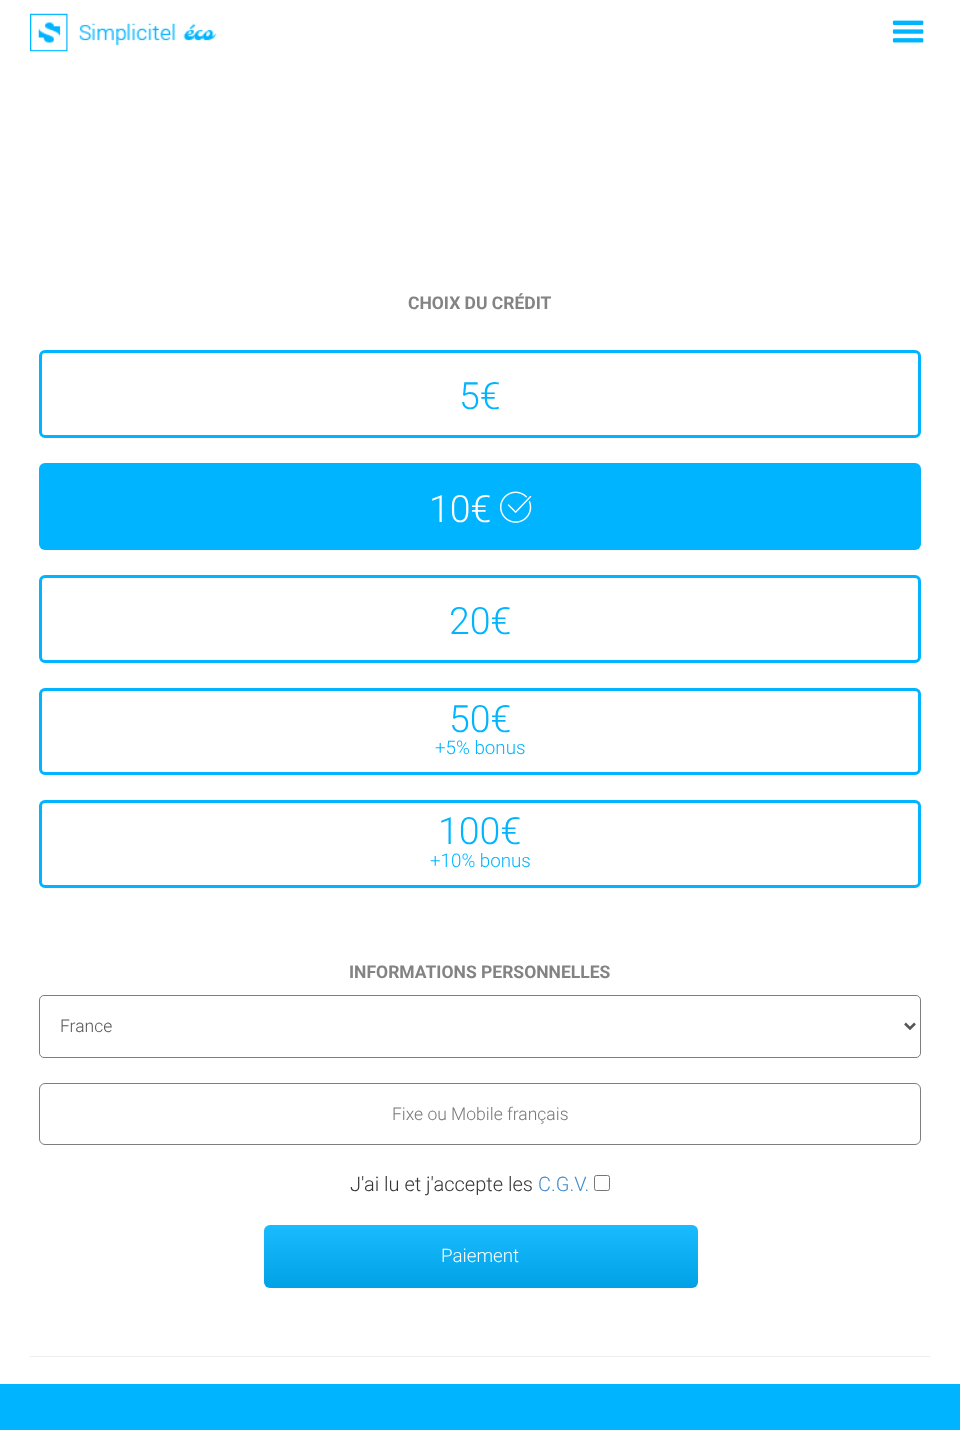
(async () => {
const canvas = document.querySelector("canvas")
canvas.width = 960
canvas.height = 1430
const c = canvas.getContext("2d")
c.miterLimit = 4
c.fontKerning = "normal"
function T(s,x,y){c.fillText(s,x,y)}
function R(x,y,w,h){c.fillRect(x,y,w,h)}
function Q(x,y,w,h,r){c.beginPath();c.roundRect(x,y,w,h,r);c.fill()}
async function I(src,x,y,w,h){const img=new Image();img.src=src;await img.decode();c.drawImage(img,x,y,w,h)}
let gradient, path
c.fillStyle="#fff"
R(0,0,960,1430)
await I("1.png",30,13,187,39)
await I("2.png",892,20,32,23)
c.font="bold 17.5px Roboto"
c.fillStyle="#838383"
T("CHOIX DU CRÉDIT",408,309)
c.beginPath()
c.roundRect(40.5,351.5,879,85,4.5)
c.strokeStyle="#00b4ff"
c.lineWidth=3
c.stroke()
c.font="300 37.5px Roboto"
c.fillStyle="#00b4ff"
T("5€",459,409)
c.beginPath()
c.roundRect(40.5,464.5,879,84,4.5)
c.stroke()
R(41,466,878,83)
c.fillStyle="#fff"
T("10€",429,522)
await I("3.png",500,491,32,32)
c.beginPath()
c.roundRect(40.5,576.5,879,85,4.5)
c.stroke()
c.fillStyle="#00b4ff"
T("20€",449,634)
c.beginPath()
c.roundRect(40.5,689.5,879,84,4.5)
c.stroke()
T("50€",449,732)
c.font="300 18.75px Roboto"
T("+5% bonus",435,754)
c.beginPath()
c.roundRect(40.5,801.5,879,85,4.5)
c.stroke()
c.font="300 37.5px Roboto"
T("100€",438,844)
c.font="300 18.75px Roboto"
T("+10% bonus",430,867)
c.font="bold 17.5px Roboto"
c.fillStyle="#838383"
T("INFORMATIONS PERSONNELLES",349,978)
c.beginPath()
c.roundRect(39.5,995.5,881,62,4.5)
c.strokeStyle="#7e7e7e"
c.lineWidth=1
c.stroke()
path = new Path2D("M905 1023.5l5 5l5-5")
c.strokeStyle="#555"
c.lineWidth=2.5
c.stroke(path)
c.font="300 17.5px Roboto"
c.fillStyle="#555"
T("France",60,1032)
c.beginPath()
c.roundRect(39.5,1083.5,881,61,5.5)
c.strokeStyle="#7e7e7e"
c.lineWidth=1
c.stroke()
c.fillStyle="#777"
T("Fixe ou Mobile français",392,1120)
c.font="300 20px Roboto"
c.fillStyle="#333"
T("J'ai lu et j'accepte les",350,1191)
c.fillStyle="#428bca"
T("C.G.V.",538,1191)
c.beginPath()
c.roundRect(594.5,1175.5,15,15,2)
c.strokeStyle="#767676"
c.stroke()
c.fillStyle="#00b4ff"
Q(264,1225,434,63,6)
gradient = c.createLinearGradient(481,1288,481,1225)
gradient.addColorStop(0,"#0000001a")
gradient.addColorStop(1,"#ffffff1a")
c.fillStyle = gradient
Q(264,1225,434,63,6)
c.font="300 18.75px Roboto"
c.fillStyle="#fff"
T("Paiement",441,1262)
c.fillStyle="#eee"
R(30,1356,900,1)
c.fillStyle="#00b4ff"
R(0,1384,960,46)
})()
